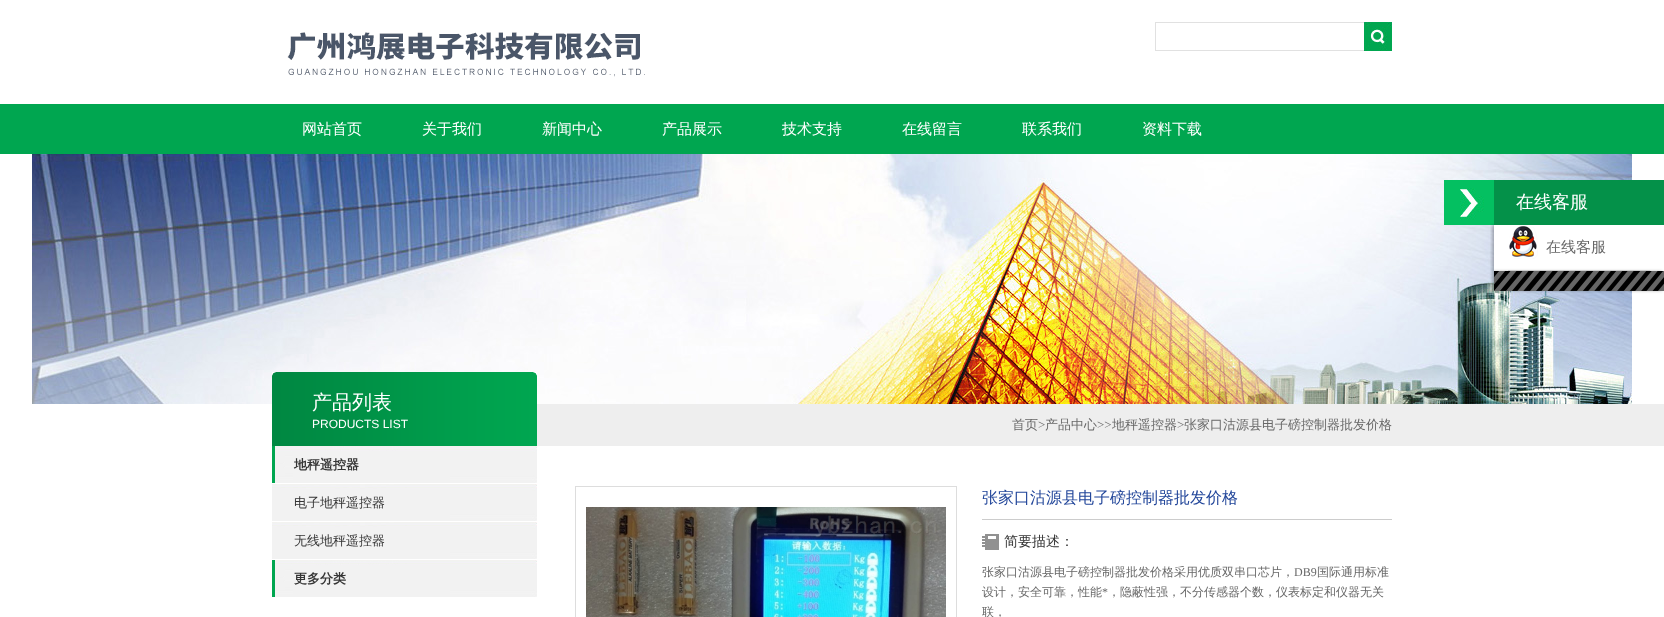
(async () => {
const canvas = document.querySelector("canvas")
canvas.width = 1664
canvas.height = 617
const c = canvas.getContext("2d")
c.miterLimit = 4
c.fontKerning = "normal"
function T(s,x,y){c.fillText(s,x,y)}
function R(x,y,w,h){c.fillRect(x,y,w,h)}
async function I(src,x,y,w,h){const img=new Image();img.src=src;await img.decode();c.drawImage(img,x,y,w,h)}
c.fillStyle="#fff"
R(0,0,1664,617)
c.fillStyle="#eee"
R(537,404,1127,42)
await I("1.png",287,32,358,45)
c.fillStyle="#e1e1e1"
R(1155,22,209,1)
R(1155,50,209,1)
R(1155,22,1,29)
await I("2.png",1364,22,28,29)
c.fillStyle="#00a650"
R(0,104,1664,50)
c.font="500 15px WenQuanYi Zen Hei"
c.fillStyle="#fff"
T("网站首页",302,134)
T("关于我们",422,134)
T("新闻中心",542,134)
T("产品展示",662,134)
T("技术支持",782,134)
T("在线留言",902,134)
T("联系我们",1022,134)
T("资料下载",1142,134)
await I("3.png",32,154,1600,250)
await I("4.png",1444,180,50,45)
R(1494,225,138,46)
c.save()
c.beginPath()
c.rect(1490,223,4,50)
c.clip()
c.fillStyle="#00000040"
c.filter="blur(1.5px)"
c.beginPath()
c.rect(1492,225,170,46)
c.fill()
c.filter="none"
c.restore()
c.fillStyle="#049149"
R(1494,180,170,45)
c.font="500 18px WenQuanYi Zen Hei"
c.fillStyle="#fff"
T("在线客服",1516,208)
c.fillStyle="#e3e3e3"
R(1508,270,142,1)
await I("5.png",1509,226,29,33)
c.font="500 15px WenQuanYi Zen Hei"
c.fillStyle="#686868"
T("在线客服",1546,252)
c.fillStyle="#00000040"
c.filter="blur(1.5px)"
c.beginPath()
c.rect(1492,271,170,20)
c.fill()
c.filter="none"
await I("6.png",1494,271,170,20)
await I("7.png",272,372,265,74)
c.font="500 20px WenQuanYi Zen Hei"
c.fillStyle="#fff"
T("产品列表",312,409)
c.font="12px Liberation Sans"
T("PRODUCTS LIST",312,428)
await I("8.png",272,446,265,37)
c.font="bold 13px WenQuanYi Zen Hei"
c.fillStyle="#353535"
T("地秤遥控器",294,469)
await I("9.png",272,484,265,37)
c.font="500 13px WenQuanYi Zen Hei"
T("电子地秤遥控器",294,507)
await I("9.png",272,522,265,37)
T("无线地秤遥控器",294,545)
await I("8.png",272,560,265,37)
c.font="bold 13px WenQuanYi Zen Hei"
T("更多分类",294,583)
c.font="500 13px WenQuanYi Zen Hei"
c.fillStyle="#686868"
T("首页",1012,429)
c.font="13px Liberation Serif"
T(">",1038,429)
c.font="500 13px WenQuanYi Zen Hei"
T("产品中心",1045,429)
c.font="13px Liberation Serif"
T(">>",1097,429)
c.font="500 13px WenQuanYi Zen Hei"
T("地秤遥控器",1112,429)
c.font="13px Liberation Serif"
T(">",1177,429)
c.font="500 13px WenQuanYi Zen Hei"
T("张家口沽源县电子磅控制器批发价格",1184,429)
c.strokeStyle="#ddd"
c.strokeRect(575.5,486.5,381,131)
await I("10.png",586,507,360,110)
c.fillStyle="#ccc"
R(982,519,410,1)
c.font="500 16px WenQuanYi Zen Hei"
c.fillStyle="#22469a"
T("张家口沽源县电子磅控制器批发价格",982,503)
await I("11.png",982,534,17,16)
c.font="500 14px WenQuanYi Zen Hei"
c.fillStyle="#353535"
T("简要描述：",1004,546)
c.font="500 12px WenQuanYi Zen Hei"
c.fillStyle="#686868"
T("张家口沽源县电子磅控制器批发价格采用优质双串口芯片，",982,576)
c.font="12px Liberation Serif"
T("DB9",1294,576)
c.font="500 12px WenQuanYi Zen Hei"
T("国际通用标准",1317,576)
T("设计，安全可靠，性能",982,596)
c.font="12px Liberation Serif"
T("*",1102,596)
c.font="500 12px WenQuanYi Zen Hei"
T("，隐蔽性强，不分传感器个数，仪表标定和仪器无关",1108,596)
T("联，",982,616)
})()
